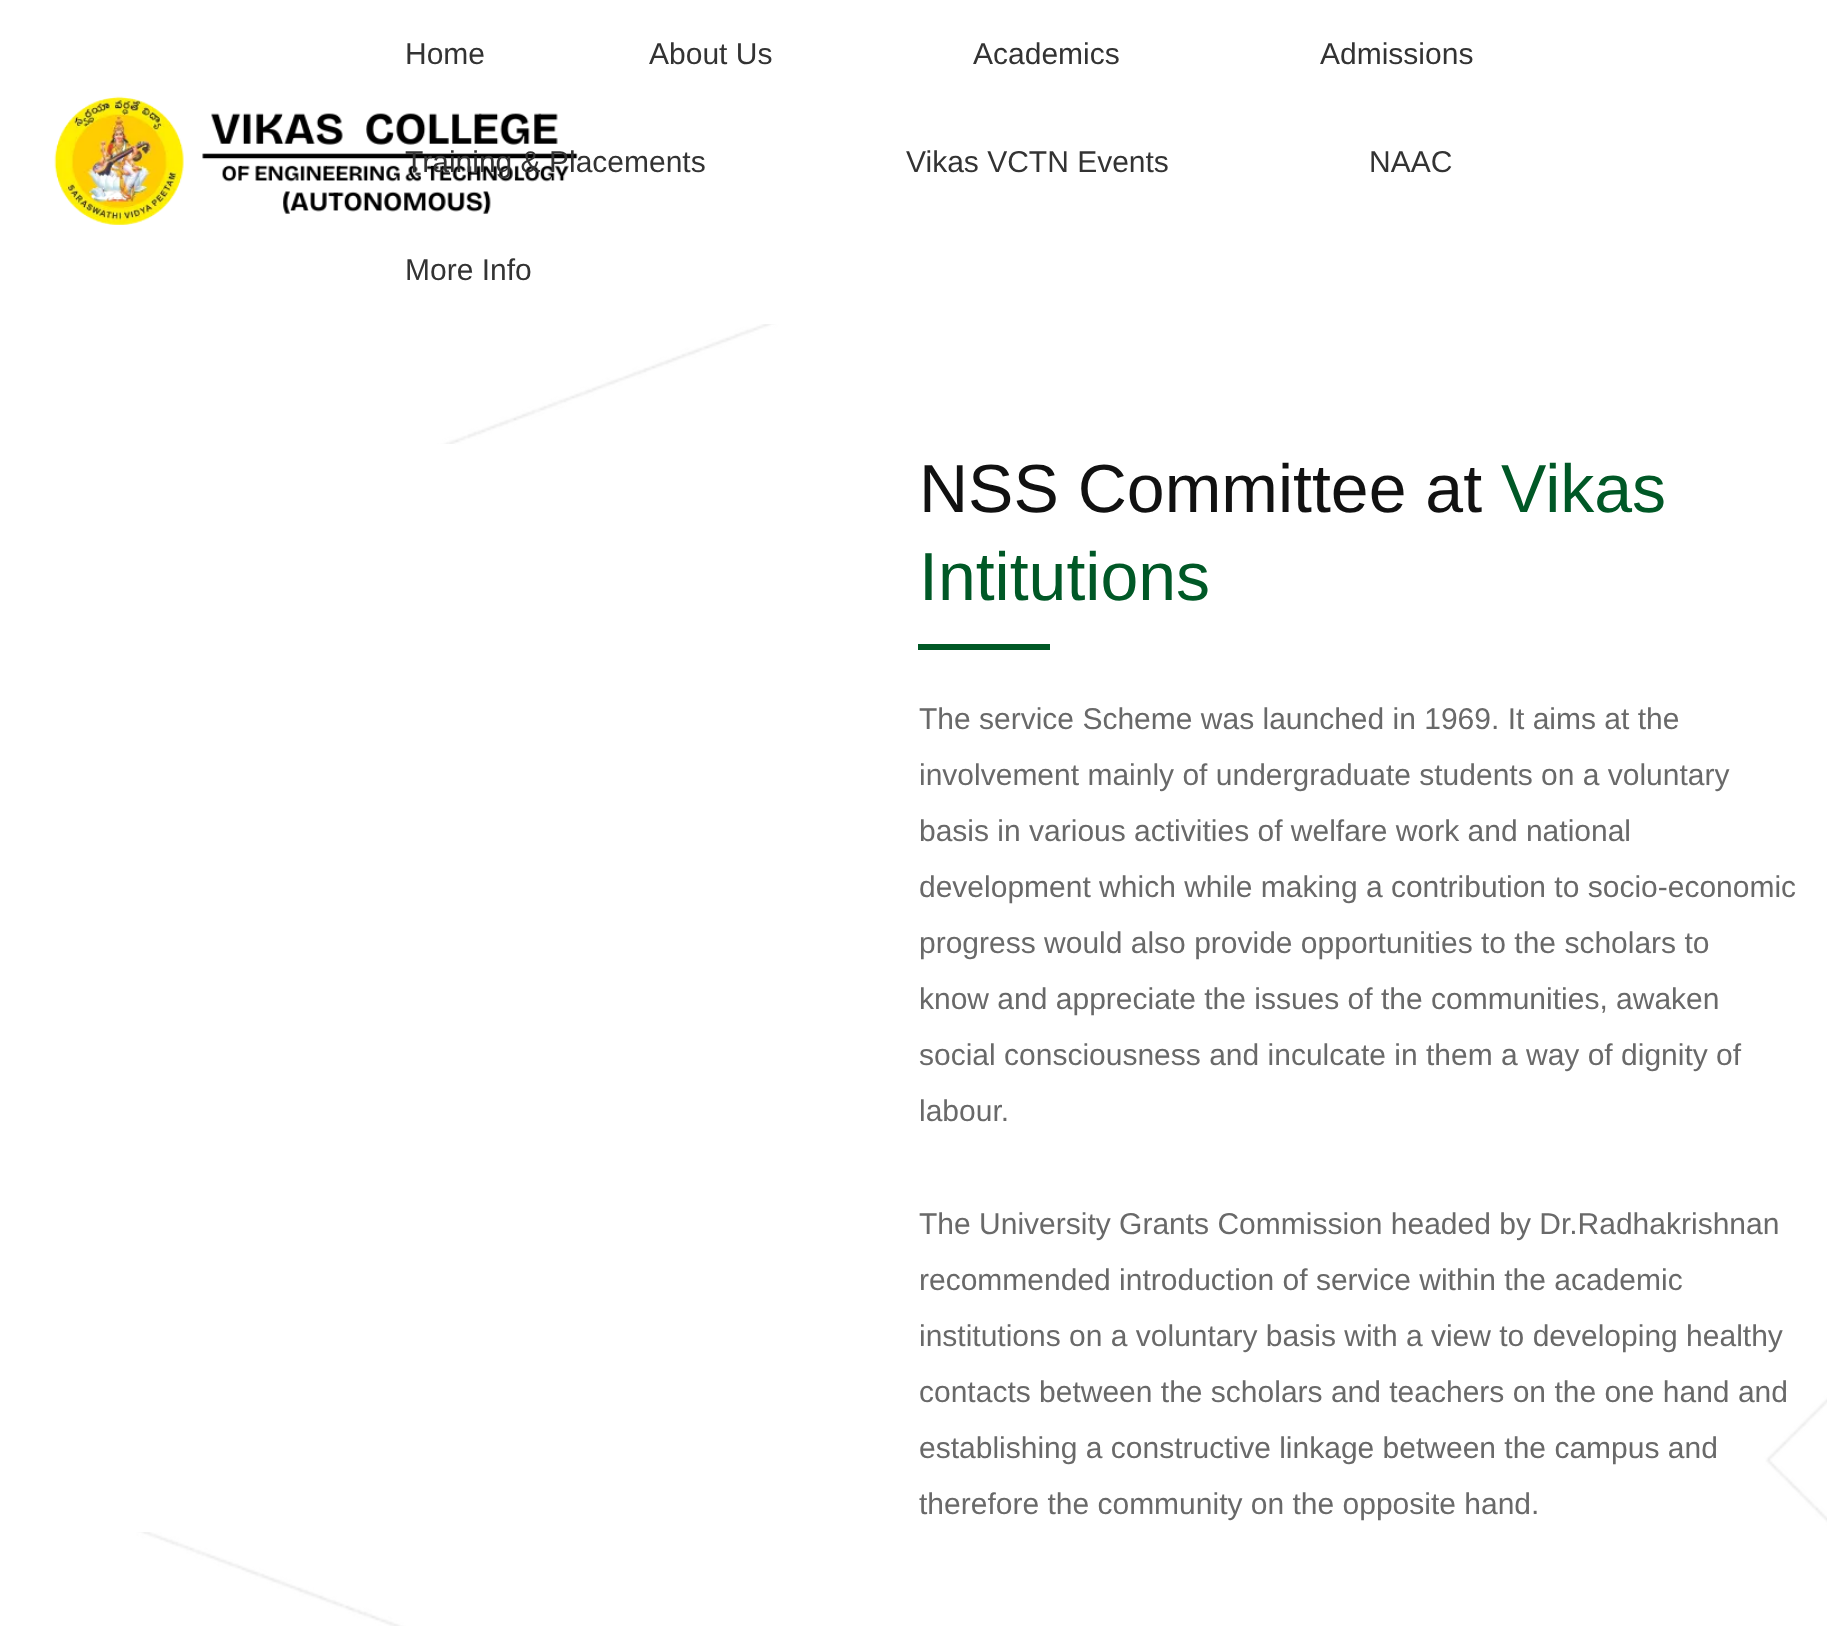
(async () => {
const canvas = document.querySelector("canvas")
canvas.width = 1827
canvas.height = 1626
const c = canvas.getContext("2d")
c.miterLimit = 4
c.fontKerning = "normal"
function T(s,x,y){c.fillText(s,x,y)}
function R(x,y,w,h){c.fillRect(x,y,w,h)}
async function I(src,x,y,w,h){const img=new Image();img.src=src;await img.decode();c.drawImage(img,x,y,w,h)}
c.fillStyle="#fff"
R(0,0,1827,1626)
await I("1.png",54,96,524,129)
c.font="30px Liberation Sans"
c.fillStyle="#333"
T("Home",405,64)
T("About Us",649,64)
T("Academics",973,64)
T("Admissions",1320,64)
T("Training & Placements",405,172)
T("Vikas VCTN Events",906,172)
T("NAAC",1369,172)
T("More Info",405,280)
await I("2.png",136,324,1691,1302)
c.fillStyle="#fff"
R(136,444,319,1088)
c.font="68px Liberation Sans"
c.fillStyle="#111"
T("NSS Committee at",919,512)
c.fillStyle="#005826"
T("Vikas",1501,512)
T("Intitutions",919,600)
R(918,644,132,6)
c.font="30px Liberation Sans"
c.fillStyle="#696969"
T("The service Scheme was launched in 1969. It aims at the",919,729)
T("involvement mainly of undergraduate students on a voluntary",919,785)
T("basis in various activities of welfare work and national",919,841)
T("development which while making a contribution to socio-economic",919,897)
T("progress would also provide opportunities to the scholars to",919,953)
T("know and appreciate the issues of the communities, awaken",919,1009)
T("social consciousness and inculcate in them a way of dignity of",919,1065)
T("labour.",919,1121)
T("The University Grants Commission headed by Dr.Radhakrishnan",919,1234)
T("recommended introduction of service within the academic",919,1290)
T("institutions on a voluntary basis with a view to developing healthy",919,1346)
T("contacts between the scholars and teachers on the one hand and",919,1402)
T("establishing a constructive linkage between the campus and",919,1458)
T("therefore the community on the opposite hand.",919,1514)
})()
